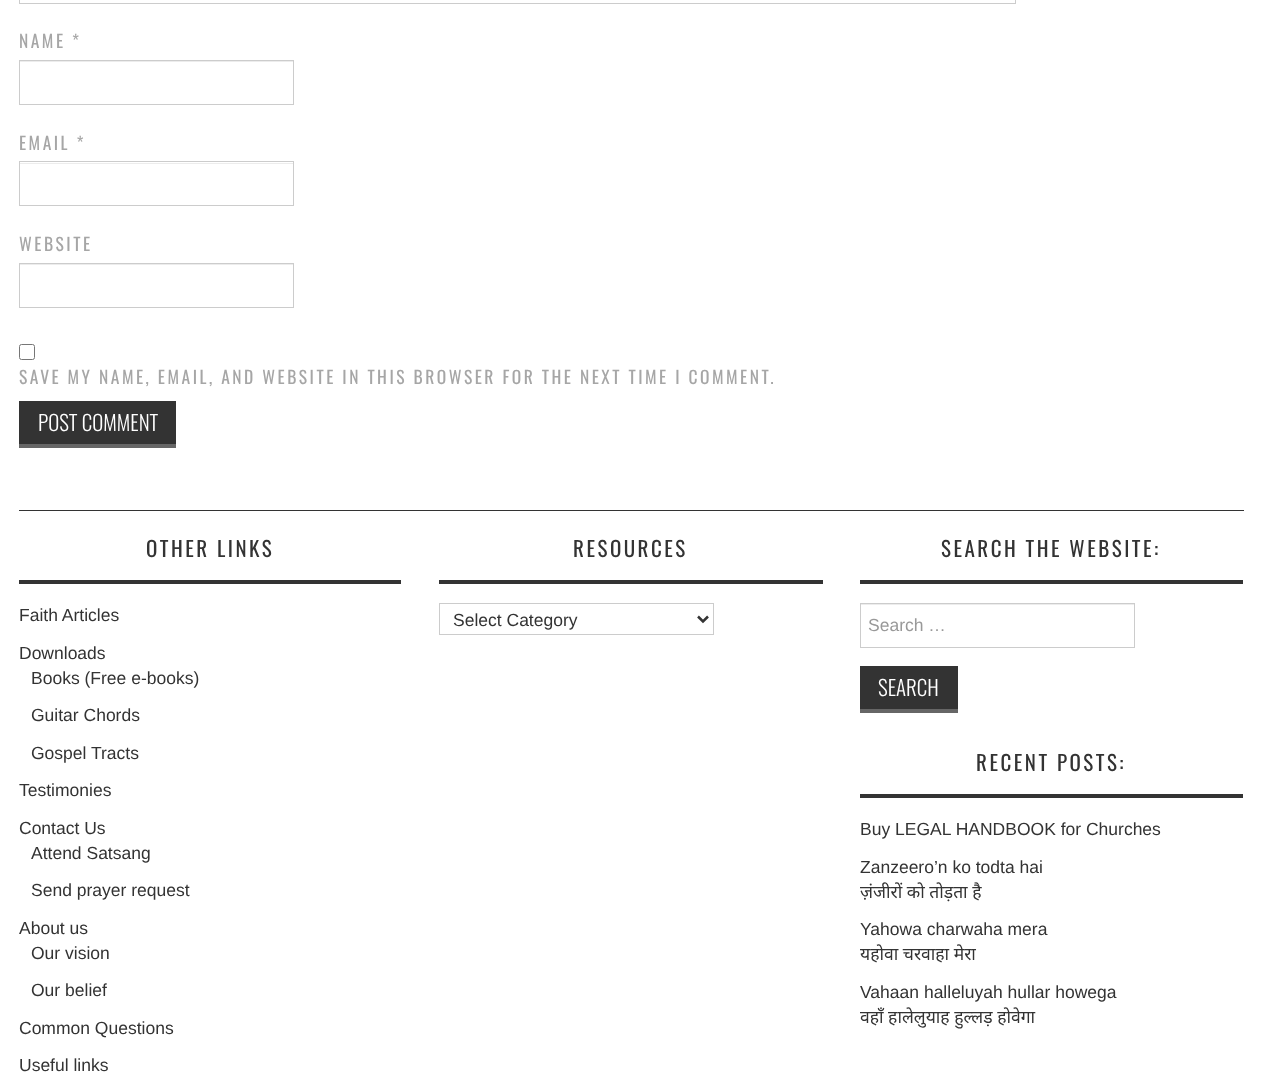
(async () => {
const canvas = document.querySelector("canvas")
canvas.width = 1262
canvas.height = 1072
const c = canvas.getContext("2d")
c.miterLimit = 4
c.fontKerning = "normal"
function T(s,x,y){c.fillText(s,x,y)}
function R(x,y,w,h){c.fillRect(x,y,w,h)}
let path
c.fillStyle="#fff"
R(0,0,1262,1072)
c.strokeStyle="#ccc"
c.strokeRect(19.5,-.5,996,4)
c.letterSpacing="2.5px"
c.font="17.5px Oswald"
c.fillStyle="#a6a6a6"
T("NAME *",19,48)
c.fillStyle="#ececec"
R(20,61,273,1)
c.strokeRect(19.5,60.5,274,44)
c.fillStyle="#a6a6a6"
T("EMAIL *",19,150)
c.fillStyle="#ececec"
R(20,163,273,1)
c.strokeRect(19.5,161.5,274,44)
c.fillStyle="#a6a6a6"
T("WEBSITE",19,251)
c.fillStyle="#ececec"
R(20,264,273,1)
c.strokeRect(19.5,263.5,274,44)
c.beginPath()
c.roundRect(19.5,344.5,15,15,2)
c.strokeStyle="#767676"
c.stroke()
c.fillStyle="#a6a6a6"
T("SAVE MY NAME, EMAIL, AND WEBSITE IN THIS BROWSER FOR THE NEXT TIME I COMMENT.",19,384)
c.fillStyle="#333"
R(19,401,157,43)
c.fillStyle="#666"
R(19,444,157,4)
c.letterSpacing="0px"
c.font="300 21px Oswald"
c.fillStyle="#fff"
T("POST COMMENT",38,431)
c.fillStyle="#333"
R(19,510,1225,1)
R(19,580,382,4)
c.letterSpacing="2.5px"
c.font="21px Oswald"
T("OTHER LINKS",146,557)
c.letterSpacing="0px"
c.font="17.5px Liberation Sans"
T("Faith Articles",19,621)
T("Downloads",19,659)
T("Books (Free e-books)",31,684)
T("Guitar Chords",31,721)
T("Gospel Tracts",31,759)
T("Testimonies",19,796)
T("Contact Us",19,834)
T("Attend Satsang",31,859)
T("Send prayer request",31,896)
T("About us",19,934)
T("Our vision",31,959)
T("Our belief",31,996)
T("Common Questions",19,1034)
T("Useful links",19,1071)
R(439,580,384,4)
c.letterSpacing="2.5px"
c.font="21px Oswald"
T("RESOURCES",573,557)
c.strokeStyle="#ccc"
c.strokeRect(439.5,603.5,274,31)
path = new Path2D("M698 616.5l5 5l5-5")
c.strokeStyle="#333"
c.lineWidth=2.5
c.stroke(path)
c.letterSpacing="0px"
c.font="17.5px Liberation Sans"
T("Select Category",453,626)
R(860,580,383,4)
c.letterSpacing="2.5px"
c.font="21px Oswald"
T("SEARCH THE WEBSITE:",941,557)
c.fillStyle="#ececec"
R(861,604,273,1)
c.strokeStyle="#ccc"
c.lineWidth=1
c.strokeRect(860.5,603.5,274,44)
c.letterSpacing="0px"
c.font="17.5px Liberation Sans"
c.fillStyle="#999"
T("Search …",868,631)
c.fillStyle="#333"
R(860,666,98,43)
c.fillStyle="#666"
R(860,709,98,4)
c.font="300 21px Oswald"
c.fillStyle="#fff"
T("SEARCH",878,696)
c.fillStyle="#333"
R(860,794,383,4)
c.letterSpacing="2.5px"
c.font="21px Oswald"
T("RECENT POSTS:",976,771)
c.letterSpacing="0px"
c.font="17.5px Liberation Sans"
T("Buy LEGAL HANDBOOK for Churches",860,835)
T("Zanzeero’n ko todta hai",860,873)
c.font="17.5px Noto Sans"
T("ज़ंजीरों को तोड़ता है",860,898)
c.font="17.5px Liberation Sans"
T("Yahowa charwaha mera",860,935)
c.font="17.5px Noto Sans"
T("यहोवा चरवाहा मेरा",860,960)
c.font="17.5px Liberation Sans"
T("Vahaan halleluyah hullar howega",860,998)
c.font="17.5px Noto Sans"
T("वहाँ हालेलुयाह हुल्लड़ होवेगा",860,1023)
})()
